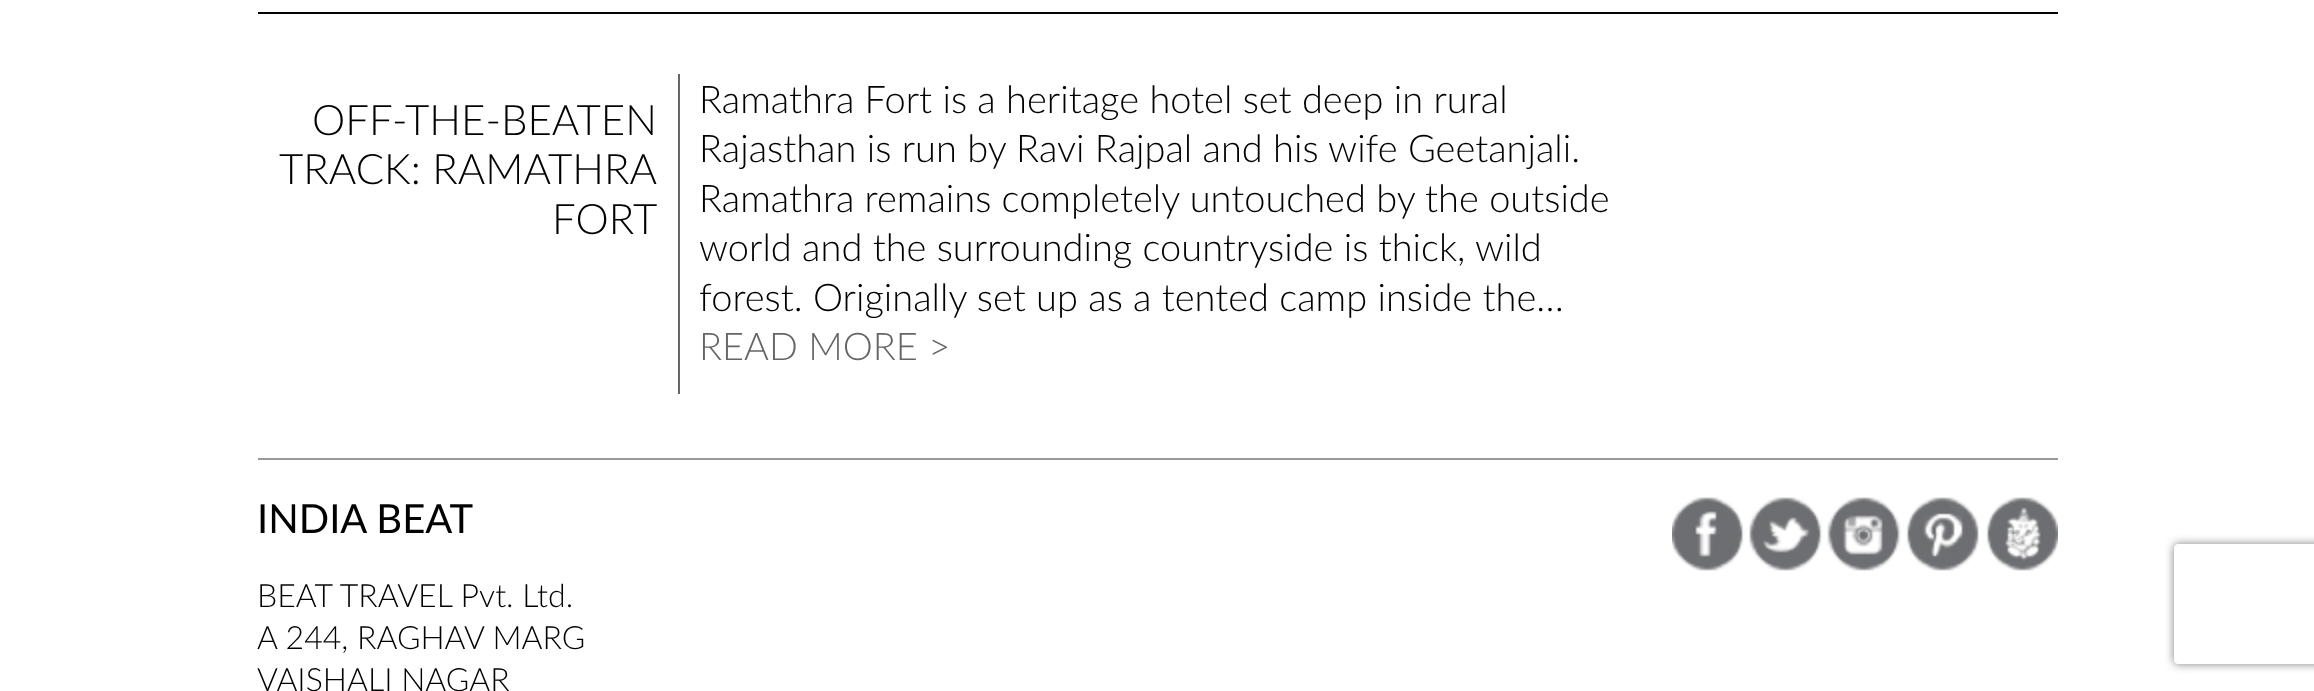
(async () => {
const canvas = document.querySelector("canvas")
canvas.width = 2314
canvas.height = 691
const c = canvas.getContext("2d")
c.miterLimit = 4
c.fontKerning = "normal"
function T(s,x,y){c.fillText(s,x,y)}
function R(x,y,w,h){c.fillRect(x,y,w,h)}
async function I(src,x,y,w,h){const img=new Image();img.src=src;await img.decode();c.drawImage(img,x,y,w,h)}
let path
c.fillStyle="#fff"
R(0,0,2314,691)
c.fillStyle="#000"
R(258,12,1800,2)
c.fillStyle="#666"
R(678,74,2,320)
c.font="300 42px Lato"
c.fillStyle="#000"
T("OFF-THE-BEATEN",312,135)
T("TRACK: RAMATHRA",279,184)
T("FORT",552,234)
c.font="300 38px Lato"
T("Ramathra Fort is a heritage hotel set deep in rural",699,113)
T("Rajasthan is run by Ravi Rajpal and his wife Geetanjali.",699,162)
T("Ramathra remains completely untouched by the outside",699,212)
T("world and the surrounding countryside is thick, wild",699,261)
T("forest. Originally set up as a tented camp inside the…",699,311)
c.fillStyle="#666"
T("READ MORE >",699,360)
c.fillStyle="#999"
R(258,458,1800,2)
c.font="40px Lato"
c.fillStyle="#000"
T("INDIA BEAT",257,533)
c.font="300 32px Lato"
T("BEAT TRAVEL Pvt. Ltd.",257,607)
T("A 244, RAGHAV MARG",257,649)
T("VAISHALI NAGAR",257,691)
await I("1.png",1672,497,386,74)
c.save()
path = new Path2D("M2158 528h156v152h-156zm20 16h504c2 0 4 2 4 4v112c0 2-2 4-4 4h-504c-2 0-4-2-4-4v-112c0-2 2-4 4-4z")
c.clip(path,"evenodd")
c.fillStyle="#808080"
c.filter="blur(5px)"
c.beginPath()
c.roundRect(2174,544,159,120,4)
c.fill()
c.filter="none"
c.restore()
})()
